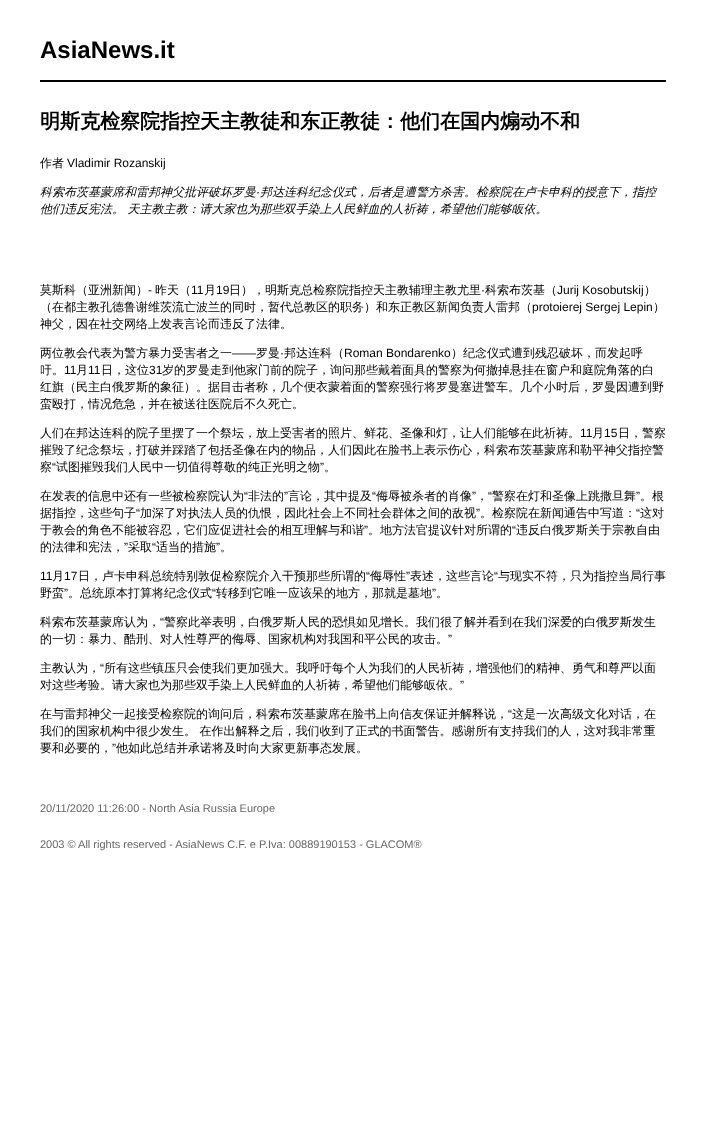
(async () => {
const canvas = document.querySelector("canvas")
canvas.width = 706
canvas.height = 1148
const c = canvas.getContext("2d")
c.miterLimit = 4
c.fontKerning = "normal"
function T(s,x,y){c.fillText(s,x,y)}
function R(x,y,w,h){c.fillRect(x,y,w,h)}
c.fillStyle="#fff"
R(0,0,706,1148)
c.font="bold 24px Liberation Sans"
c.fillStyle="#000"
T("AsiaNews.it",40,58)
R(40,80,626,2)
c.font="bold 20px WenQuanYi Zen Hei"
T("明斯克检察院指控天主教徒和东正教徒：他们在国内煽动不和",40,128)
c.font="500 12px WenQuanYi Zen Hei"
T("作者",40,167)
c.font="12px Liberation Sans"
T("Vladimir Rozanskij",67,167)
c.font="italic 500 12px WenQuanYi Zen Hei"
T("科索布茨基蒙席和雷邦神父批评破坏罗曼",40,196)
c.font="italic 12px Liberation Sans"
T("·",256,196)
c.font="italic 500 12px WenQuanYi Zen Hei"
T("邦达连科纪念仪式，后者是遭警方杀害。检察院在卢卡申科的授意下，指控",260,196)
T("他们违反宪法。 天主教主教：请大家也为那些双手染上人民鲜血的人祈祷，希望他们能够皈依。",40,213)
c.font="500 12px WenQuanYi Zen Hei"
T("莫斯科（亚洲新闻）",40,294)
c.font="12px Liberation Sans"
T("-",148,294)
c.font="500 12px WenQuanYi Zen Hei"
T("昨天（",155,294)
c.font="12px Liberation Sans"
T("11",191,294)
c.font="500 12px WenQuanYi Zen Hei"
T("月",204,294)
c.font="12px Liberation Sans"
T("19",216,294)
c.font="500 12px WenQuanYi Zen Hei"
T("日），明斯克总检察院指控天主教辅理主教尤里",229,294)
c.font="12px Liberation Sans"
T("·",481,294)
c.font="500 12px WenQuanYi Zen Hei"
T("科索布茨基（",485,294)
c.font="12px Liberation Sans"
T("Jurij Kosobutskij",557,294)
c.font="500 12px WenQuanYi Zen Hei"
T("）",644,294)
T("（在都主教孔德鲁谢维茨流亡波兰的同时，暂代总教区的职务）和东正教区新闻负责人雷邦（",40,311)
c.font="12px Liberation Sans"
T("protoierej Sergej Lepin",532,311)
c.font="500 12px WenQuanYi Zen Hei"
T("）",653,311)
T("神父，因在社交网络上发表言论而违反了法律。",40,328)
T("两位教会代表为警方暴力受害者之一",40,357)
c.font="12px Liberation Sans"
T("——",232,357)
c.font="500 12px WenQuanYi Zen Hei"
T("罗曼",256,357)
c.font="12px Liberation Sans"
T("·",280,357)
c.font="500 12px WenQuanYi Zen Hei"
T("邦达连科（",284,357)
c.font="12px Liberation Sans"
T("Roman Bondarenko",344,357)
c.font="500 12px WenQuanYi Zen Hei"
T("）纪念仪式遭到残忍破坏，而发起呼",451,357)
T("吁。",40,374)
c.font="12px Liberation Sans"
T("11",64,374)
c.font="500 12px WenQuanYi Zen Hei"
T("月",76,374)
c.font="12px Liberation Sans"
T("11",88,374)
c.font="500 12px WenQuanYi Zen Hei"
T("日，这位",101,374)
c.font="12px Liberation Sans"
T("31",149,374)
c.font="500 12px WenQuanYi Zen Hei"
T("岁的罗曼走到他家门前的院子，询问那些戴着面具的警察为何撤掉悬挂在窗户和庭院角落的白",162,374)
T("红旗（民主白俄罗斯的象征）。据目击者称，几个便衣蒙着面的警察强行将罗曼塞进警车。几个小时后，罗曼因遭到野",40,391)
T("蛮殴打，情况危急，并在被送往医院后不久死亡。",40,408)
T("人们在邦达连科的院子里摆了一个祭坛，放上受害者的照片、鲜花、圣像和灯，让人们能够在此祈祷。",40,437)
c.font="12px Liberation Sans"
T("11",580,437)
c.font="500 12px WenQuanYi Zen Hei"
T("月",592,437)
c.font="12px Liberation Sans"
T("15",604,437)
c.font="500 12px WenQuanYi Zen Hei"
T("日，警察",618,437)
T("摧毁了纪念祭坛，打破并踩踏了包括圣像在内的物品，人们因此在脸书上表示伤心，科索布茨基蒙席和勒平神父指控警",40,454)
T("察",40,471)
c.font="12px Liberation Sans"
T("“",52,471)
c.font="500 12px WenQuanYi Zen Hei"
T("试图摧毁我们人民中一切值得尊敬的纯正光明之物",56,471)
c.font="12px Liberation Sans"
T("”",320,471)
c.font="500 12px WenQuanYi Zen Hei"
T("。",324,471)
T("在发表的信息中还有一些被检察院认为",40,500)
c.font="12px Liberation Sans"
T("“",244,500)
c.font="500 12px WenQuanYi Zen Hei"
T("非法的",248,500)
c.font="12px Liberation Sans"
T("”",284,500)
c.font="500 12px WenQuanYi Zen Hei"
T("言论，其中提及",288,500)
c.font="12px Liberation Sans"
T("“",372,500)
c.font="500 12px WenQuanYi Zen Hei"
T("侮辱被杀者的肖像",376,500)
c.font="12px Liberation Sans"
T("”",472,500)
T("“",488,500)
c.font="500 12px WenQuanYi Zen Hei"
T("警察在灯和圣像上跳撒旦舞",492,500)
c.font="12px Liberation Sans"
T("”",636,500)
c.font="500 12px WenQuanYi Zen Hei"
T("。根",640,500)
T("，",476,500)
T("据指控，这些句子",40,517)
c.font="12px Liberation Sans"
T("“",136,517)
c.font="500 12px WenQuanYi Zen Hei"
T("加深了对执法人员的仇恨，因此社会上不同社会群体之间的敌视",140,517)
c.font="12px Liberation Sans"
T("”",476,517)
c.font="500 12px WenQuanYi Zen Hei"
T("。检察院在新闻通告中写道：",480,517)
c.font="12px Liberation Sans"
T("“",636,517)
c.font="500 12px WenQuanYi Zen Hei"
T("这对",640,517)
T("于教会的角色不能被容忍，它们应促进社会的相互理解与和谐",40,534)
c.font="12px Liberation Sans"
T("”",364,534)
c.font="500 12px WenQuanYi Zen Hei"
T("。地方法官提议针对所谓的",368,534)
c.font="12px Liberation Sans"
T("“",512,534)
c.font="500 12px WenQuanYi Zen Hei"
T("违反白俄罗斯关于宗教自由",516,534)
T("的法律和宪法，",40,551)
c.font="12px Liberation Sans"
T("”",124,551)
c.font="500 12px WenQuanYi Zen Hei"
T("采取",128,551)
c.font="12px Liberation Sans"
T("“",152,551)
c.font="500 12px WenQuanYi Zen Hei"
T("适当的措施",156,551)
c.font="12px Liberation Sans"
T("”",216,551)
c.font="500 12px WenQuanYi Zen Hei"
T("。",220,551)
c.font="12px Liberation Sans"
T("11",40,580)
c.font="500 12px WenQuanYi Zen Hei"
T("月",52,580)
c.font="12px Liberation Sans"
T("17",64,580)
c.font="500 12px WenQuanYi Zen Hei"
T("日，卢卡申科总统特别敦促检察院介入干预那些所谓的",78,580)
c.font="12px Liberation Sans"
T("“",366,580)
c.font="500 12px WenQuanYi Zen Hei"
T("侮辱性",370,580)
c.font="12px Liberation Sans"
T("”",406,580)
c.font="500 12px WenQuanYi Zen Hei"
T("表述，这些言论",410,580)
c.font="12px Liberation Sans"
T("“",494,580)
c.font="500 12px WenQuanYi Zen Hei"
T("与现实不符，只为指控当局行事",498,580)
T("野蛮",40,597)
c.font="12px Liberation Sans"
T("”",64,597)
c.font="500 12px WenQuanYi Zen Hei"
T("。总统原本打算将纪念仪式",68,597)
c.font="12px Liberation Sans"
T("“",212,597)
c.font="500 12px WenQuanYi Zen Hei"
T("转移到它唯一应该呆的地方，那就是墓地",216,597)
c.font="12px Liberation Sans"
T("”",432,597)
c.font="500 12px WenQuanYi Zen Hei"
T("。",436,597)
T("科索布茨基蒙席认为，",40,626)
c.font="12px Liberation Sans"
T("“",160,626)
c.font="500 12px WenQuanYi Zen Hei"
T("警察此举表明，白俄罗斯人民的恐惧如见增长。我们很了解并看到在我们深爱的白俄罗斯发生",164,626)
T("的一切：暴力、酷刑、对人性尊严的侮辱、国家机构对我国和平公民的攻击。",40,643)
c.font="12px Liberation Sans"
T("”",448,643)
c.font="500 12px WenQuanYi Zen Hei"
T("主教认为，",40,672)
c.font="12px Liberation Sans"
T("“",100,672)
c.font="500 12px WenQuanYi Zen Hei"
T("所有这些镇压只会使我们更加强大。我呼吁每个人为我们的人民祈祷，增强他们的精神、勇气和尊严以面",104,672)
T("对这些考验。请大家也为那些双手染上人民鲜血的人祈祷，希望他们能够皈依。",40,689)
c.font="12px Liberation Sans"
T("”",460,689)
c.font="500 12px WenQuanYi Zen Hei"
T("在与雷邦神父一起接受检察院的询问后，科索布茨基蒙席在脸书上向信友保证并解释说，",40,718)
c.font="12px Liberation Sans"
T("“",508,718)
c.font="500 12px WenQuanYi Zen Hei"
T("这是一次高级文化对话，在",512,718)
T("我们的国家机构中很少发生。 在作出解释之后，我们收到了正式的书面警告。感谢所有支持我们的人，这对我非常重",40,735)
T("要和必要的，",40,752)
c.font="12px Liberation Sans"
T("”",112,752)
c.font="500 12px WenQuanYi Zen Hei"
T("他如此总结并承诺将及时向大家更新事态发展。",116,752)
c.font="11px Liberation Sans"
c.fillStyle="#666"
T("20/11/2020 11:26:00 - North Asia Russia Europe",40,812)
T("2003 © All rights reserved - AsiaNews C.F. e P.Iva: 00889190153 - GLACOM®",40,848)
})()
